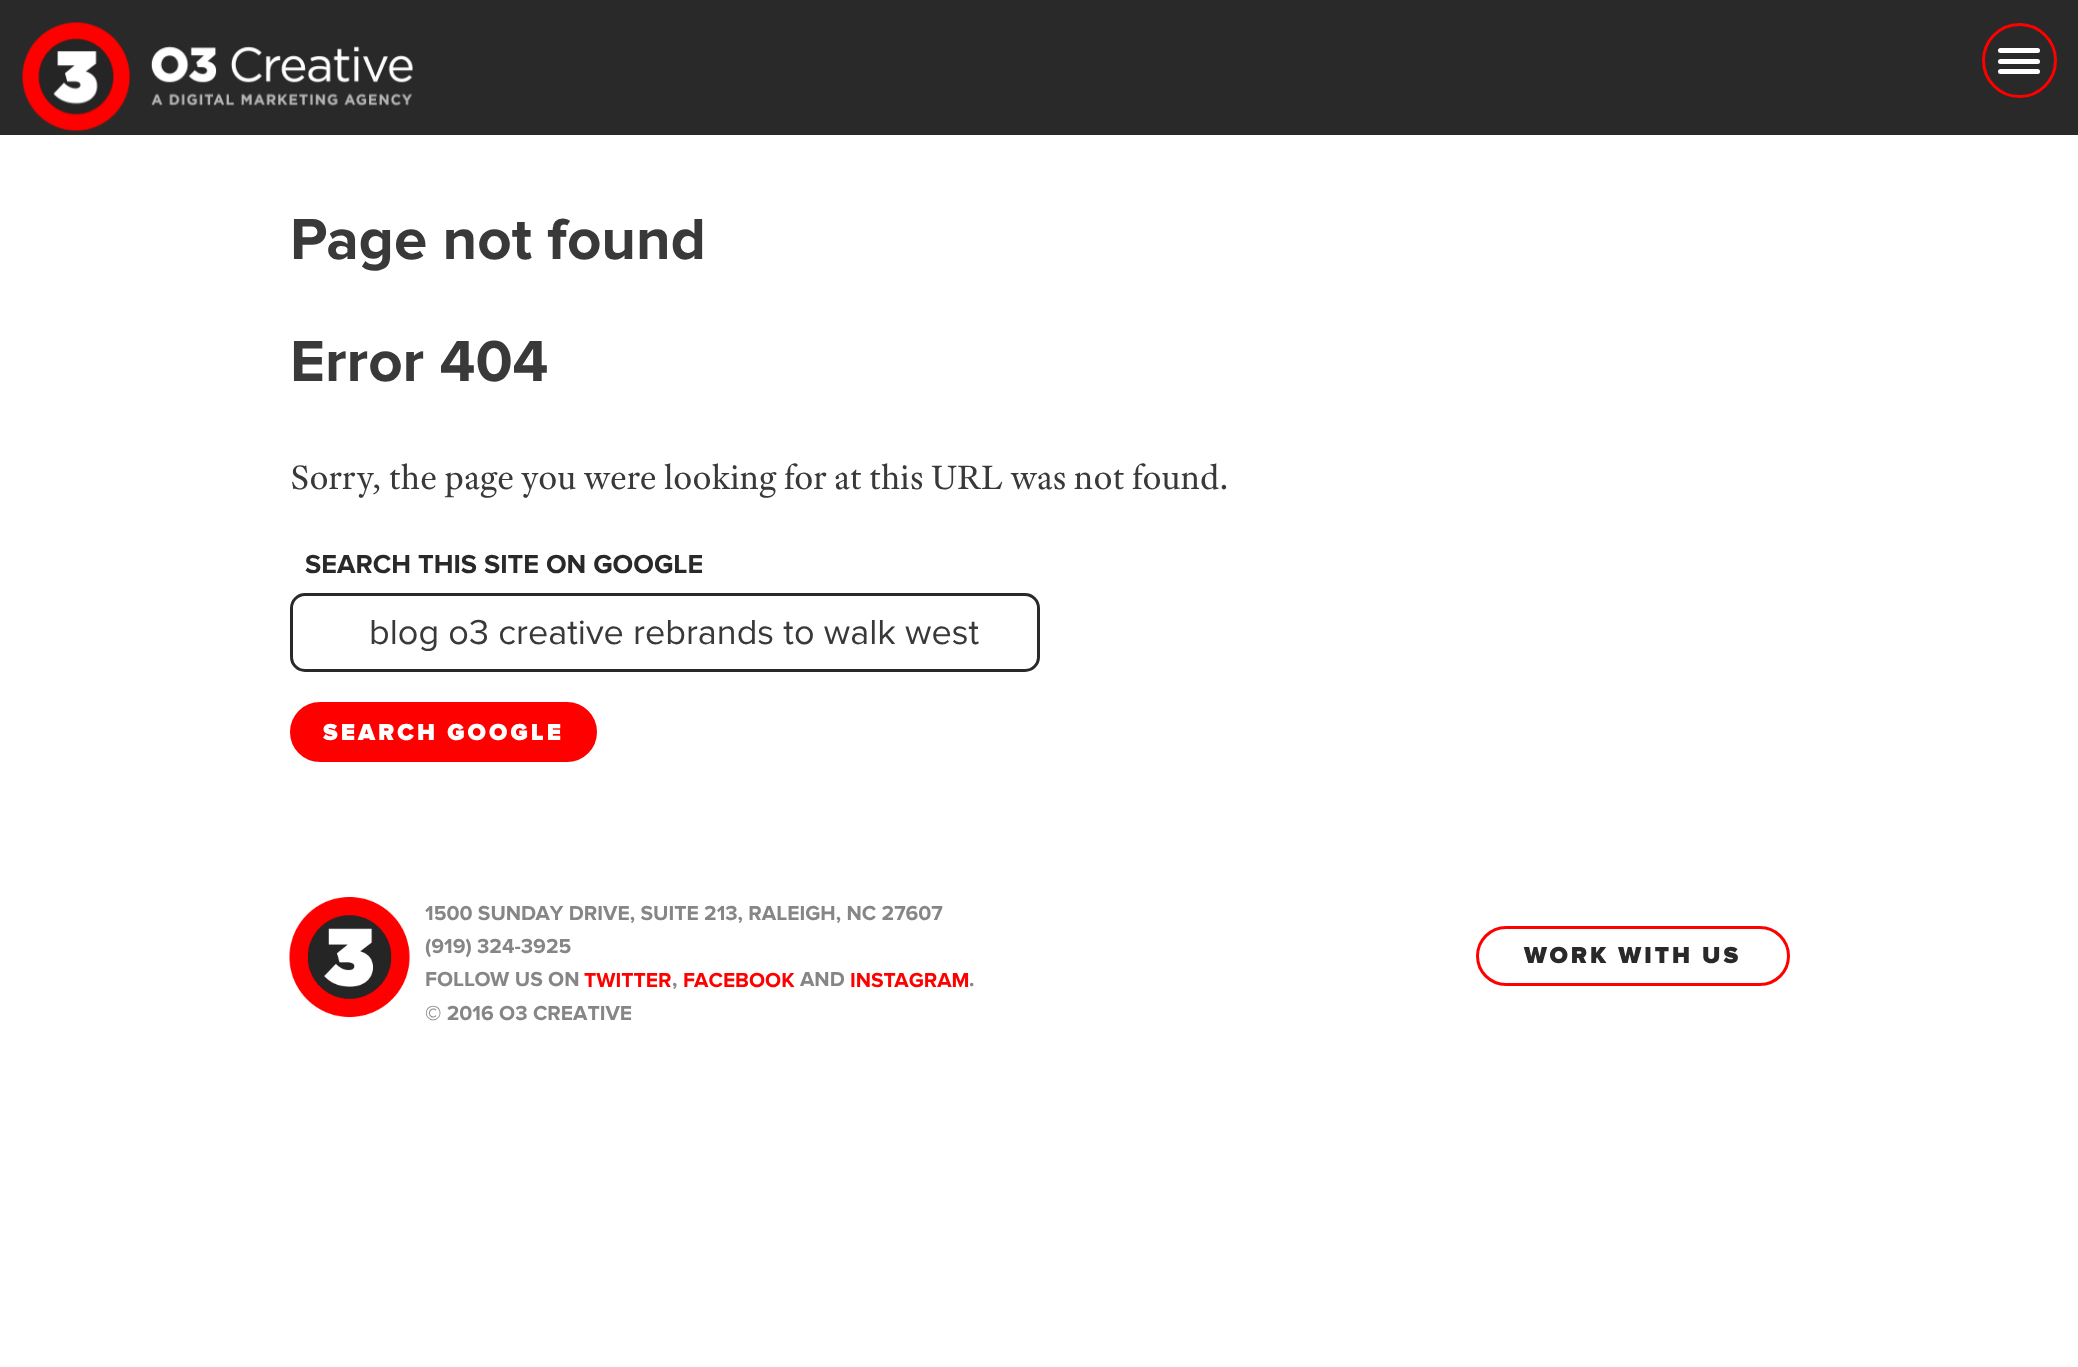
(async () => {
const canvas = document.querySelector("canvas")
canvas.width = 2078
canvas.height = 1367
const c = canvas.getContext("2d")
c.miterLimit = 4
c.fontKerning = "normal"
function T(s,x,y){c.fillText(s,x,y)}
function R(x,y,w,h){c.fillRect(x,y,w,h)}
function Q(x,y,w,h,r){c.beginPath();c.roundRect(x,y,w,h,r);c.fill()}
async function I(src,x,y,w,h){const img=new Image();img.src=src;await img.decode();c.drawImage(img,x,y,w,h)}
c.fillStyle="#fff"
R(0,0,2078,1367)
c.fillStyle="#292929"
R(0,0,2078,135)
await I("1.png",22,22,391,109)
c.beginPath()
c.arc(2019.5,60.5,36,0,7)
c.strokeStyle="#f00"
c.lineWidth=3
c.stroke()
c.fillStyle="#fff"
Q(1998,59,42,5,2.5)
Q(1998,48,42,5,2.5)
Q(1998,69,42,5,2.5)
c.font="bold 60px Proxima Nova"
c.fillStyle="#393939"
T("Page not found",290,259)
T("Error 404",290,381)
c.font="36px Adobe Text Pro"
T("Sorry, the page you were looking for at this URL was not found.",290,489)
c.font="bold 27px Proxima Nova"
c.fillStyle="#292929"
T("SEARCH THIS SITE ON GOOGLE",305,573)
c.beginPath()
c.roundRect(291.5,594.5,747,76,13.5)
c.strokeStyle="#292929"
c.stroke()
c.font="36px Proxima Nova"
c.fillStyle="#393939"
T("blog o3 creative rebrands to walk west",369,644)
c.fillStyle="#f00"
c.beginPath()
c.roundRect(291.5,703.5,304,57,28.5)
c.fill()
c.strokeStyle="#f00"
c.stroke()
c.letterSpacing="3px"
c.font="900 24px Proxima Nova"
c.fillStyle="#fff"
T("SEARCH GOOGLE",323,740)
await I("2.png",289,897,121,120)
c.letterSpacing="0px"
c.font="bold 21px Proxima Nova"
c.fillStyle="#868688"
T("1500 SUNDAY DRIVE, SUITE 213, RALEIGH, NC 27607",425,920)
T("(919) 324-3925",425,953)
T("FOLLOW US ON",425,986)
c.fillStyle="#f00"
T("TWITTER",584,987)
c.fillStyle="#868688"
T(",",672,986)
c.fillStyle="#f00"
T("FACEBOOK",683,987)
c.fillStyle="#868688"
T("AND",800,986)
c.fillStyle="#f00"
T("INSTAGRAM",850,987)
c.fillStyle="#868688"
T(".",969,986)
T("© 2016 O3 CREATIVE",425,1020)
c.beginPath()
c.roundRect(1477.5,927.5,311,57,28.5)
c.stroke()
c.letterSpacing="3px"
c.font="900 24px Proxima Nova"
c.fillStyle="#292929"
T("WORK WITH US",1524,963)
})()
